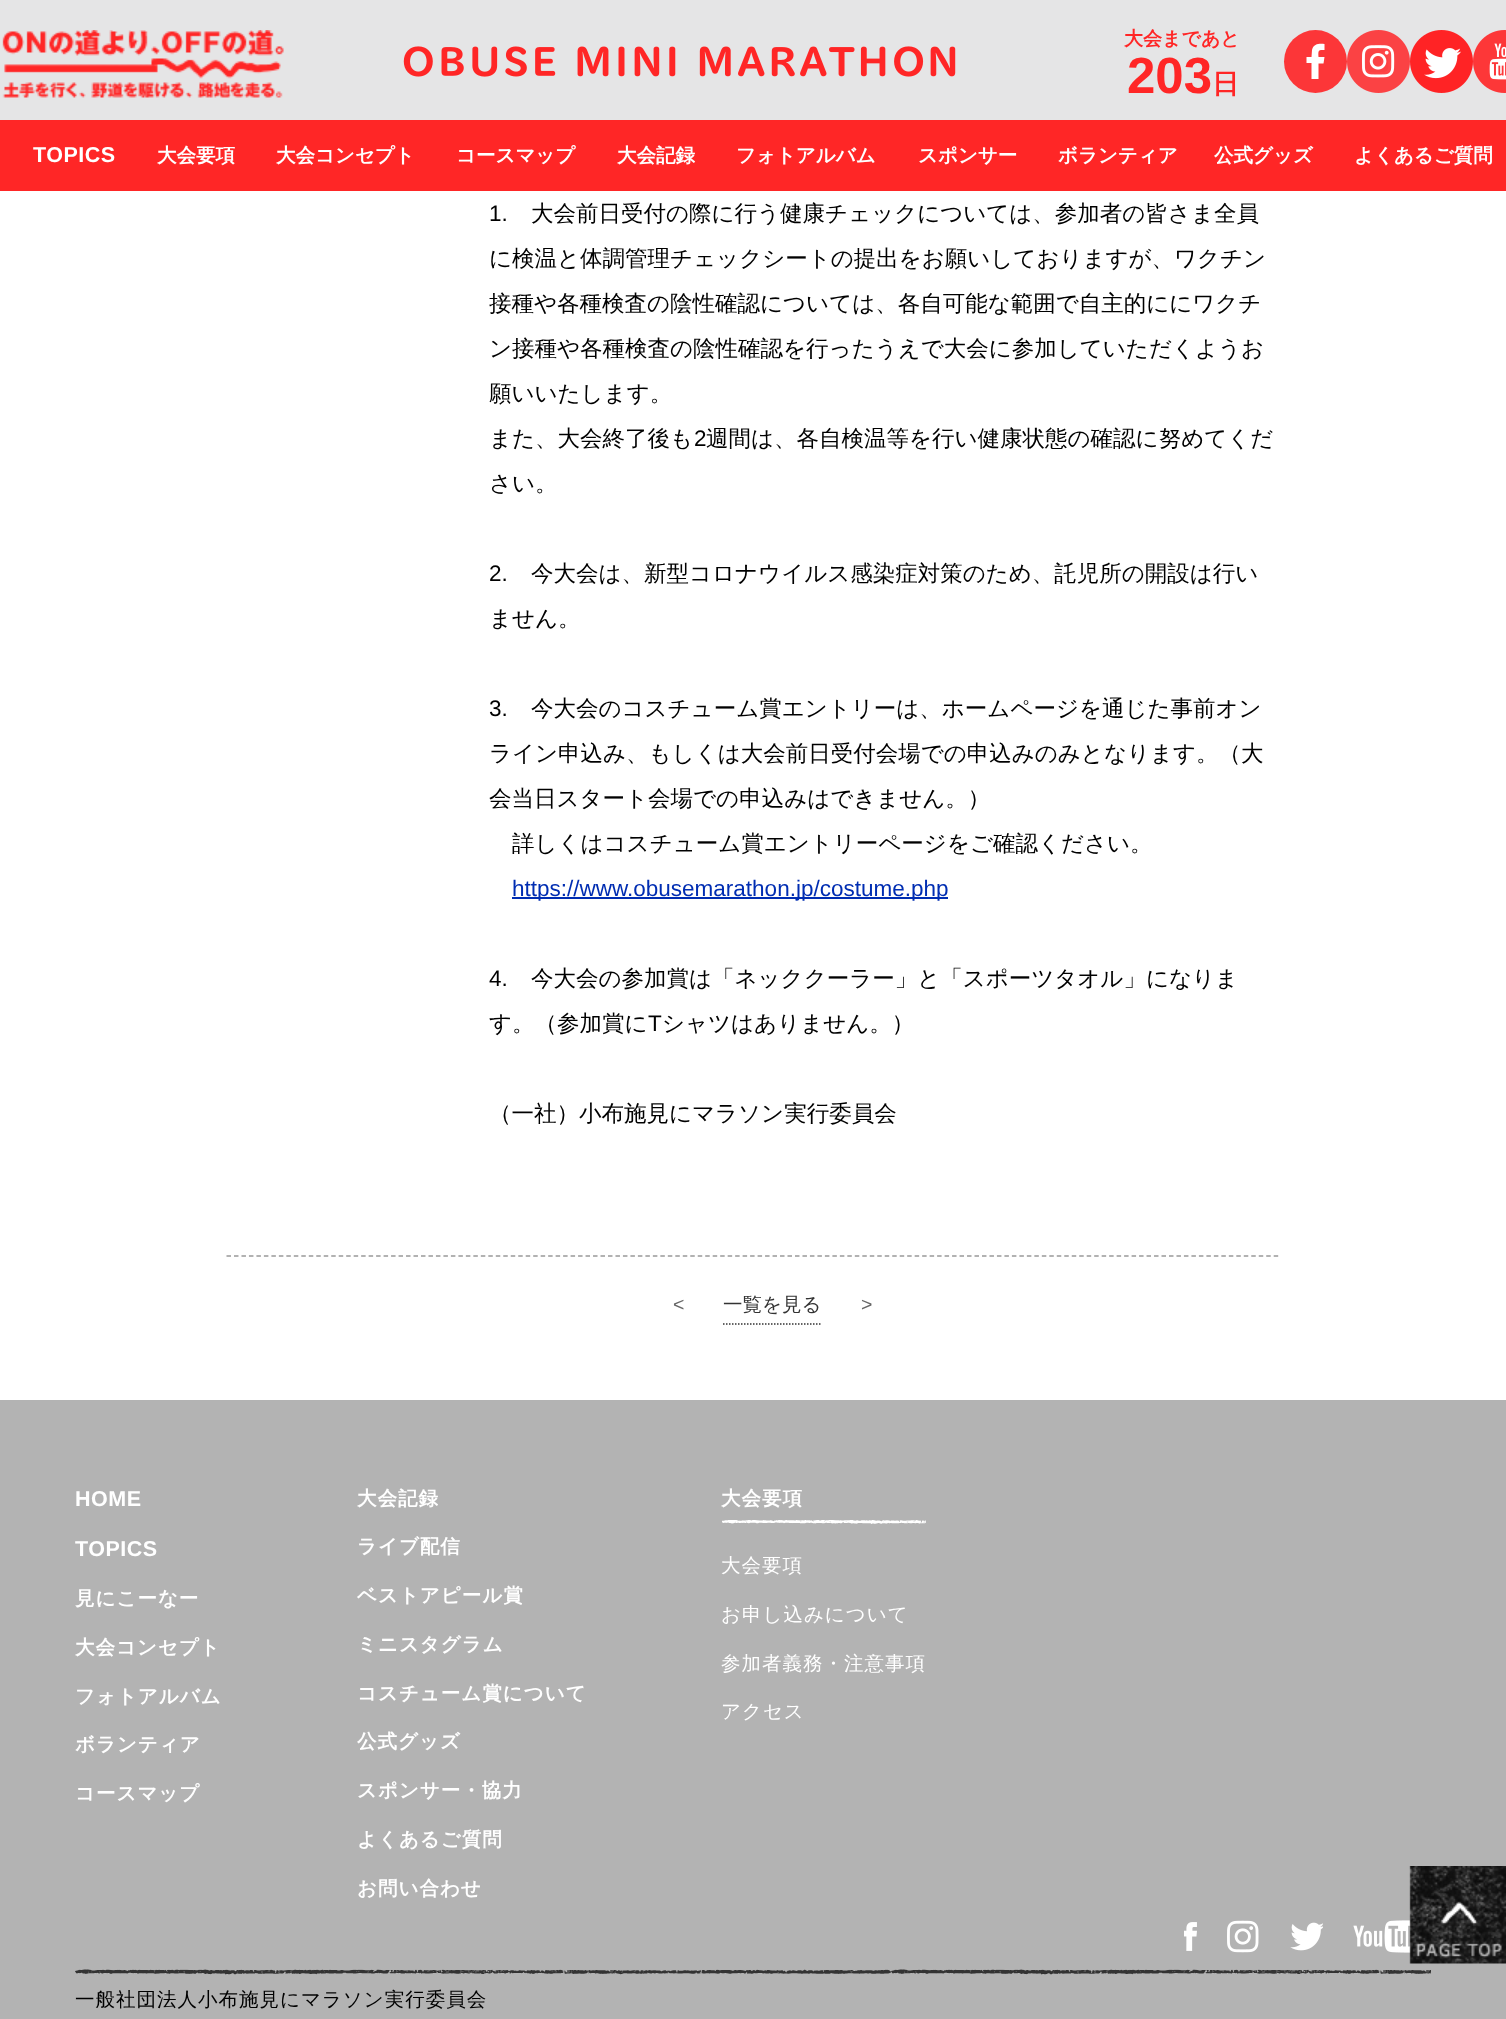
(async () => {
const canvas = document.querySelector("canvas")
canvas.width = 1506
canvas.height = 2019
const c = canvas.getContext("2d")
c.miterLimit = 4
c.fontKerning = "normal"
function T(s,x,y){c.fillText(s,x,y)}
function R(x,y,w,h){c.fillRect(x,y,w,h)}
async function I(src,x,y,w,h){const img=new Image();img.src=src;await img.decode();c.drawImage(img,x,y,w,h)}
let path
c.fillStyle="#b3b3b3"
R(0,0,1506,2019)
c.fillStyle="#e5e5e6"
R(0,0,1506,120)
await I("1.png",2,30,282,68)
await I("2.png",403,46,553,31)
c.font="bold 19px WenQuanYi Zen Hei"
c.fillStyle="#ff2626"
T("大会まであと",1124,45)
c.font="bold 51px Liberation Sans"
T("203",1127,93)
c.font="bold 27px WenQuanYi Zen Hei"
T("日",1212,93)
c.fillStyle="#fc3638"
c.beginPath()
c.arc(1315.5,61.5,31.5,0,7)
c.fill()
c.fillStyle="#fff"
path = new Path2D("M1321 50h3.5v-6c-5-.5-11-.5-12.5 6l-.5 7h-5v6h5v16h7v-15.5h5l1-6.5h-6c0-2.5-1-7 2.5-7z")
c.fill(path,"evenodd")
await I("3.png",1347,30,63,63)
await I("4.png",1410,30,63,63)
await I("5.png",1473,30,33,63)
c.fillStyle="#ff2626"
R(0,120,1506,71)
c.letterSpacing="0.5px"
c.font="bold 21.5px Liberation Sans"
c.fillStyle="#fff"
T("TOPICS",33,162)
c.letterSpacing="0px"
c.font="bold 19.5px WenQuanYi Zen Hei"
T("大会要項",157,162)
T("大会コンセプト",276,162)
T("コースマップ",456,162)
T("大会記録",617,162)
T("フォトアルバム",736,162)
T("スポンサー",918,162)
T("ボランティア",1058,162)
T("公式グッズ",1214,162)
T("よくあるご質問",1354,162)
R(0,191,1506,1209)
c.font="22.5px Liberation Sans"
c.fillStyle="#000"
T("1.",489,221)
c.font="500 22.5px WenQuanYi Zen Hei"
T("大会前日受付の際に行う健康チェックについては、参加者の皆さま全員",531,221)
T("に検温と体調管理チェックシートの提出をお願いしておりますが、ワクチン",489,266)
T("接種や各種検査の陰性確認については、各自可能な範囲で自主的ににワクチ",489,311)
T("ン接種や各種検査の陰性確認を行ったうえで大会に参加していただくようお",489,356)
T("願いいたします。",489,401)
T("また、大会終了後も",489,446)
c.font="22.5px Liberation Sans"
T("2",694,446)
c.font="500 22.5px WenQuanYi Zen Hei"
T("週間は、各自検温等を行い健康状態の確認に努めてくだ",706,446)
T("さい。",489,491)
c.font="22.5px Liberation Sans"
T("2.",489,581)
c.font="500 22.5px WenQuanYi Zen Hei"
T("今大会は、新型コロナウイルス感染症対策のため、託児所の開設は行い",531,581)
T("ません。",489,626)
c.font="22.5px Liberation Sans"
T("3.",489,716)
c.font="500 22.5px WenQuanYi Zen Hei"
T("今大会のコスチューム賞エントリーは、ホームページを通じた事前オン",531,716)
T("ライン申込み、もしくは大会前日受付会場での申込みのみとなります。（大",489,761)
T("会当日スタート会場での申込みはできません。）",489,806)
T("詳しくはコスチューム賞エントリーページをご確認ください。",512,851)
c.fillStyle="#002db2"
R(512,897,436,2)
c.font="22.5px Liberation Sans"
T("https://www.obusemarathon.jp/costume.php",512,896)
c.fillStyle="#000"
T("4.",489,986)
c.font="500 22.5px WenQuanYi Zen Hei"
T("今大会の参加賞は「ネッククーラー」と「スポーツタオル」になりま",531,986)
T("す。（参加賞に",489,1031)
c.font="22.5px Liberation Sans"
T("T",648,1031)
c.font="500 22.5px WenQuanYi Zen Hei"
T("シャツはありません。）",662,1031)
T("（一社）小布施見にマラソン実行委員会",489,1121)
path = new Path2D("M226.5 1256h1053")
c.strokeStyle="#999"
c.lineWidth=1.5
c.setLineDash([4.5,2.98])
c.stroke(path)
c.font="19.5px Liberation Sans"
c.fillStyle="#666"
T("<",673,1311)
path = new Path2D("M723 1324h99")
c.strokeStyle="#333"
c.setLineDash([1.5,1.5])
c.stroke(path)
c.font="500 19.5px WenQuanYi Zen Hei"
c.fillStyle="#333"
T("一覧を見る",723,1311)
c.font="19.5px Liberation Sans"
c.fillStyle="#666"
T(">",861,1311)
c.letterSpacing="0.5px"
c.font="bold 21.5px Liberation Sans"
c.fillStyle="#fff"
T("HOME",75,1506)
T("TOPICS",75,1556)
c.letterSpacing="1px"
c.font="bold 19.5px WenQuanYi Zen Hei"
T("見にこーなー",75,1605)
T("大会コンセプト",75,1654)
T("フォトアルバム",75,1703)
T("ボランティア",75,1751)
T("コースマップ",75,1800)
T("大会記録",357,1505)
T("ライブ配信",357,1553)
T("ベストアピール賞",357,1602)
T("ミニスタグラム",357,1651)
T("コスチューム賞について",357,1700)
T("公式グッズ",357,1748)
T("スポンサー・協力",357,1797)
T("よくあるご質問",357,1846)
T("お問い合わせ",357,1895)
await I("6.png",722,1520,204,4)
T("大会要項",721,1505)
c.font="500 19.5px WenQuanYi Zen Hei"
T("大会要項",721,1572)
T("お申し込みについて",721,1621)
T("参加者義務・注意事項",721,1670)
T("アクセス",721,1718)
await I("7.png",1184,1922,13,29)
await I("8.png",1227,1920,32,33)
await I("9.png",1290,1922,33,29)
await I("10.png",1353,1920,58,33)
await I("11.png",75,1969,1356,6)
c.fillStyle="#000"
T("一般社団法人小布施見にマラソン実行委員会",75,2006)
await I("12.png",1409,1866,97,98)
})()
